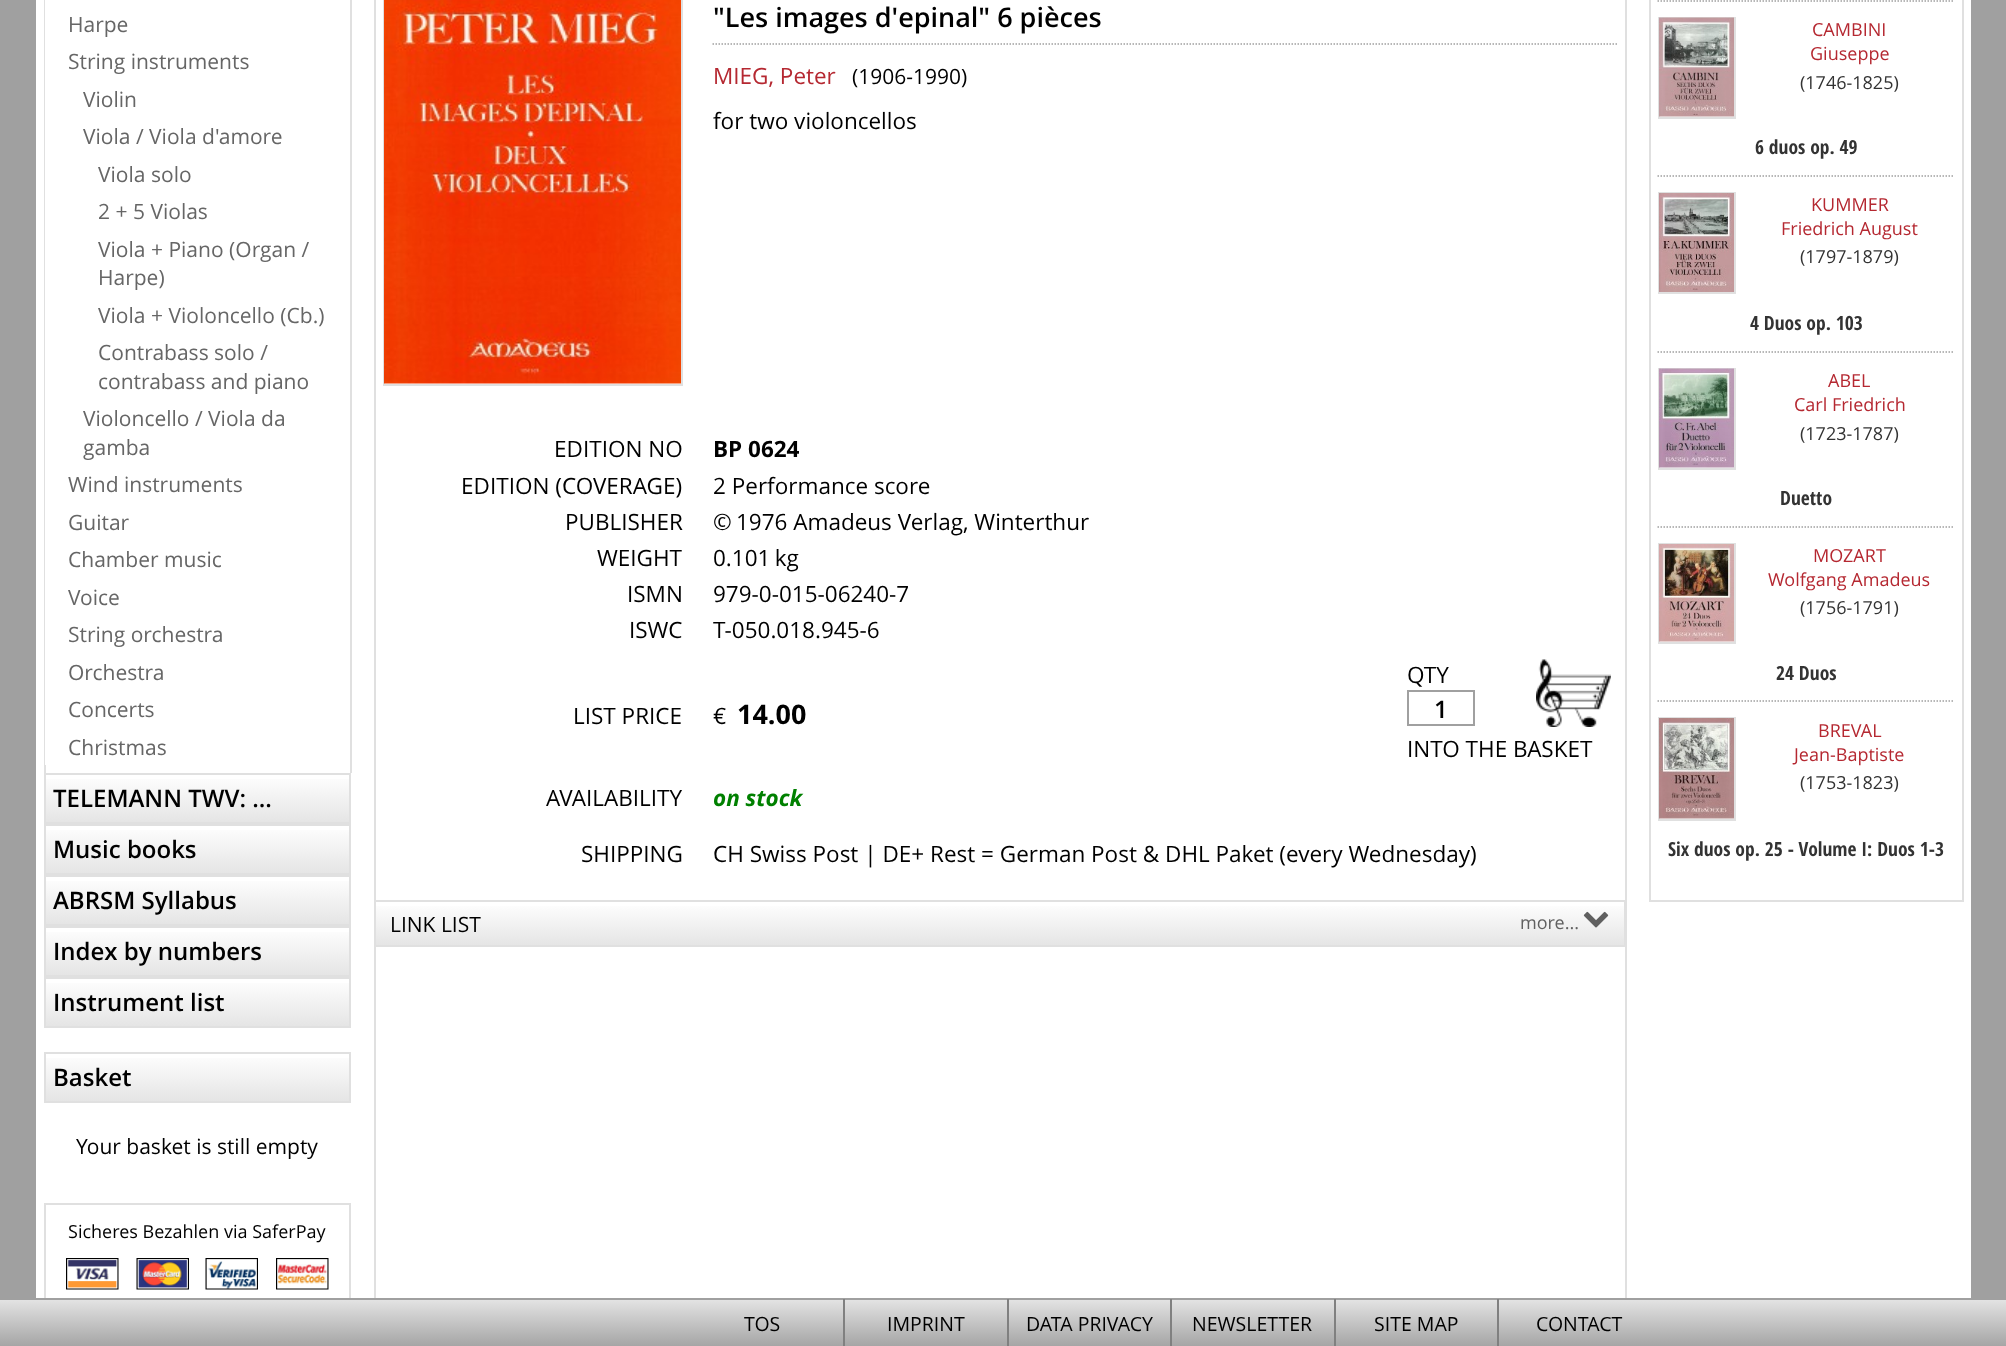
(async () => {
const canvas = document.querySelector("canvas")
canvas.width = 2006
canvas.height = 1346
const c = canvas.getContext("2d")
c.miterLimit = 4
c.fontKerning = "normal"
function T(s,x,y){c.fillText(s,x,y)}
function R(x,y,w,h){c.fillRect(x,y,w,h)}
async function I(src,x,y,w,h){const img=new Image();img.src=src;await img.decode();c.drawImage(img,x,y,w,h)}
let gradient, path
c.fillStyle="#a0a0a0"
R(0,0,2006,1346)
c.fillStyle="#fff"
R(36,0,1935,1298)
c.fillStyle="#e0e0e0"
R(350,0,2,773)
R(44,0,1,765)
c.font="21px Open Sans"
c.fillStyle="#666"
T("Harpe",68,32)
T("String instruments",68,69)
T("Violin",83,107)
T("Viola / Viola d'amore",83,144)
T("Viola solo",98,182)
T("2 + 5 Violas",98,219)
T("Viola + Piano (Organ /",98,257)
T("Harpe)",98,285)
T("Viola + Violoncello (Cb.)",98,323)
T("Contrabass solo /",98,360)
T("contrabass and piano",98,389)
T("Violoncello / Viola da",83,426)
T("gamba",83,455)
T("Wind instruments",68,492)
T("Guitar",68,530)
T("Chamber music",68,567)
T("Voice",68,605)
T("String orchestra",68,642)
T("Orchestra",68,680)
T("Concerts",68,717)
T("Christmas",68,755)
c.fillStyle="#e0e0e0"
R(44,765,2,8)
gradient = c.createLinearGradient(197,822,197,774)
gradient.addColorStop(0,"#e5e5e5")
gradient.addColorStop(1,"#fff")
c.fillStyle = gradient
R(46,779,303,43)
c.strokeStyle="#e0e0e0"
c.lineWidth=2
c.strokeRect(45,774,305,49)
c.font="600 24px Open Sans"
c.fillStyle="#000"
T("TELEMANN TWV: ...",53,807)
gradient = c.createLinearGradient(197,873,197,825)
gradient.addColorStop(0,"#e5e5e5")
gradient.addColorStop(1,"#fff")
c.fillStyle = gradient
R(46,830,303,43)
c.strokeRect(45,825,305,49)
c.fillStyle="#000"
T("Music books",53,858)
gradient = c.createLinearGradient(197,924,197,876)
gradient.addColorStop(0,"#e5e5e5")
gradient.addColorStop(1,"#fff")
c.fillStyle = gradient
R(46,881,303,43)
c.strokeRect(45,876,305,49)
c.fillStyle="#000"
T("ABRSM Syllabus",53,909)
gradient = c.createLinearGradient(197,975,197,927)
gradient.addColorStop(0,"#e5e5e5")
gradient.addColorStop(1,"#fff")
c.fillStyle = gradient
R(46,932,303,43)
c.strokeRect(45,927,305,49)
c.fillStyle="#000"
T("Index by numbers",53,960)
gradient = c.createLinearGradient(197,1026,197,978)
gradient.addColorStop(0,"#e5e5e5")
gradient.addColorStop(1,"#fff")
c.fillStyle = gradient
R(46,983,303,43)
c.strokeRect(45,978,305,49)
c.fillStyle="#000"
T("Instrument list",53,1011)
gradient = c.createLinearGradient(197,1101,197,1053)
gradient.addColorStop(0,"#e5e5e5")
gradient.addColorStop(1,"#fff")
c.fillStyle = gradient
R(46,1058,303,43)
c.strokeRect(45,1053,305,49)
c.fillStyle="#000"
T("Basket",53,1086)
c.font="21px Open Sans"
T("Your basket is still empty",76,1154)
c.strokeRect(45,1204,305,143)
c.font="18px Open Sans"
T("Sicheres Bezahlen via SaferPay",68,1238)
await I("1.png",66,1258,53,32)
await I("2.png",136,1258,53,32)
await I("3.png",205,1258,53,32)
await I("4.png",276,1258,53,32)
c.fillStyle="#e0e0e0"
R(1625,0,2,1298)
R(374,0,2,1298)
c.strokeRect(384,-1,298,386)
await I("5.png",384,0,297,384)
path = new Path2D("M712.5 44h904.5")
c.strokeStyle="#a0a0a0"
c.lineWidth=1.5
c.setLineDash([1.5,1.5])
c.stroke(path)
c.font="600 27px Open Sans"
c.fillStyle="#000"
T("\"Les images d'epinal\" 6 pièces",713,27)
c.font="22.5px Open Sans"
c.fillStyle="#b52831"
T("MIEG, Peter",713,84)
c.font="21px Open Sans"
c.fillStyle="#000"
T("(1906-1990)",852,84)
c.font="22.5px Open Sans"
T("for two violoncellos",713,129)
T("EDITION NO",554,457)
c.font="bold 22.5px Open Sans"
T("BP 0624",713,457)
c.font="22.5px Open Sans"
T("EDITION (COVERAGE)",461,494)
T("2 Performance score",713,494)
T("PUBLISHER",565,530)
T("© 1976 Amadeus Verlag, Winterthur",713,530)
T("WEIGHT",597,566)
T("0.101 kg",713,566)
T("ISMN",627,602)
T("979-0-015-06240-7",713,602)
T("ISWC",629,638)
T("T-050.018.945-6",713,638)
T("LIST PRICE",573,724)
T("€",713,724)
c.font="bold 27px Open Sans"
T("14.00",737,724)
c.font="22.5px Open Sans"
T("QTY",1407,683)
c.lineWidth=2
c.setLineDash([])
c.strokeRect(1408,691,66,34)
c.font="600 24px Open Sans"
T("1",1434,718)
await I("6.png",1536,659,75,68)
c.font="22.5px Open Sans"
T("INTO THE BASKET",1407,757)
T("AVAILABILITY",546,806)
c.font="italic bold 22.5px Open Sans"
c.fillStyle="#008000"
T("on stock",713,806)
c.font="22.5px Open Sans"
c.fillStyle="#000"
T("SHIPPING",581,862)
T("CH Swiss Post | DE+ Rest = German Post & DHL Paket (every Wednesday)",713,862)
gradient = c.createLinearGradient(1000,945,1000,902)
gradient.addColorStop(0,"#e5e5e5")
gradient.addColorStop(1,"#fff")
c.fillStyle = gradient
R(376,906,1248,39)
c.save()
c.beginPath()
c.rect(375,0,1250,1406)
c.clip()
c.strokeStyle="#e0e0e0"
c.strokeRect(375,901,1250,45)
c.restore()
c.font="21px Open Sans"
c.fillStyle="#000"
T("LINK LIST",390,932)
c.font="18px Open Sans"
c.fillStyle="#606060"
T("more...",1520,929)
await I("7.png",1583,911,26,17)
c.fillStyle="#e0e0e0"
R(1962,0,2,902)
R(1649,0,2,885)
path = new Path2D("M1657.5 1h297")
c.lineWidth=1.5
c.setLineDash([1.5,1.5])
c.stroke(path)
c.strokeStyle="#e0e0e0"
c.lineWidth=2
c.setLineDash([])
c.strokeRect(1659,18,76,100)
await I("8.png",1659,17,75,100)
c.fillStyle="#b52831"
T("CAMBINI",1812,36)
T("Giuseppe",1810,60)
c.fillStyle="#333"
T("(1746-1825)",1800,89)
c.font="bold 19.5px Open Sans Condensed"
T("6 duos op. 49",1755,154)
path = new Path2D("M1657.5 176h297")
c.strokeStyle="#a0a0a0"
c.lineWidth=1.5
c.setLineDash([1.5,1.5])
c.stroke(path)
c.strokeStyle="#e0e0e0"
c.lineWidth=2
c.setLineDash([])
c.strokeRect(1659,193,76,100)
await I("9.png",1659,193,75,99)
c.font="18px Open Sans"
c.fillStyle="#b52831"
T("KUMMER",1811,211)
T("Friedrich August",1781,235)
c.fillStyle="#333"
T("(1797-1879)",1800,263)
c.font="bold 19.5px Open Sans Condensed"
T("4 Duos op. 103",1750,330)
path = new Path2D("M1657.5 352h297")
c.strokeStyle="#a0a0a0"
c.lineWidth=1.5
c.setLineDash([1.5,1.5])
c.stroke(path)
c.strokeStyle="#e0e0e0"
c.lineWidth=2
c.setLineDash([])
c.strokeRect(1659,369,76,100)
await I("10.png",1659,368,75,100)
c.font="18px Open Sans"
c.fillStyle="#b52831"
T("ABEL",1828,387)
T("Carl Friedrich",1794,411)
c.fillStyle="#333"
T("(1723-1787)",1800,440)
c.font="bold 19.5px Open Sans Condensed"
T("Duetto",1780,505)
path = new Path2D("M1657.5 527h297")
c.strokeStyle="#a0a0a0"
c.lineWidth=1.5
c.setLineDash([1.5,1.5])
c.stroke(path)
c.strokeStyle="#e0e0e0"
c.lineWidth=2
c.setLineDash([])
c.strokeRect(1659,544,76,99)
await I("11.png",1659,544,75,98)
c.font="18px Open Sans"
c.fillStyle="#b52831"
T("MOZART",1813,562)
T("Wolfgang Amadeus",1768,586)
c.fillStyle="#333"
T("(1756-1791)",1800,614)
c.font="bold 19.5px Open Sans Condensed"
T("24 Duos",1776,680)
path = new Path2D("M1657.5 701h297")
c.strokeStyle="#a0a0a0"
c.lineWidth=1.5
c.setLineDash([1.5,1.5])
c.stroke(path)
c.strokeStyle="#e0e0e0"
c.lineWidth=2
c.setLineDash([])
c.strokeRect(1659,718,76,102)
await I("12.png",1659,718,75,101)
c.font="18px Open Sans"
c.fillStyle="#b52831"
T("BREVAL",1818,737)
T("Jean-Baptiste",1794,761)
c.fillStyle="#333"
T("(1753-1823)",1800,789)
c.font="bold 19.5px Open Sans Condensed"
T("Six duos op. 25 - Volume I: Duos 1-3",1668,856)
c.fillStyle="#e0e0e0"
R(1649,900,315,2)
R(1649,885,2,17)
gradient = c.createLinearGradient(1004,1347,1004,1299)
gradient.addColorStop(0,"#a4a4a4")
gradient.addColorStop(1,"#e4e4e4")
c.fillStyle = gradient
R(0,1300,2006,46)
c.fillStyle="#a0a0a0"
R(44,1298,307,2)
c.font="19.5px Open Sans"
c.fillStyle="#000"
T("TOS",744,1331)
c.fillStyle="#808080"
R(843,1299,2,47)
c.fillStyle="#000"
T("IMPRINT",887,1331)
c.fillStyle="#808080"
R(1007,1299,2,47)
c.fillStyle="#000"
T("DATA PRIVACY",1026,1331)
c.fillStyle="#808080"
R(1170,1299,2,47)
c.fillStyle="#000"
T("NEWSLETTER",1192,1331)
c.fillStyle="#808080"
R(1334,1299,2,47)
c.fillStyle="#000"
T("SITE MAP",1374,1331)
c.fillStyle="#808080"
R(1497,1299,2,47)
c.fillStyle="#000"
T("CONTACT",1536,1331)
})()
